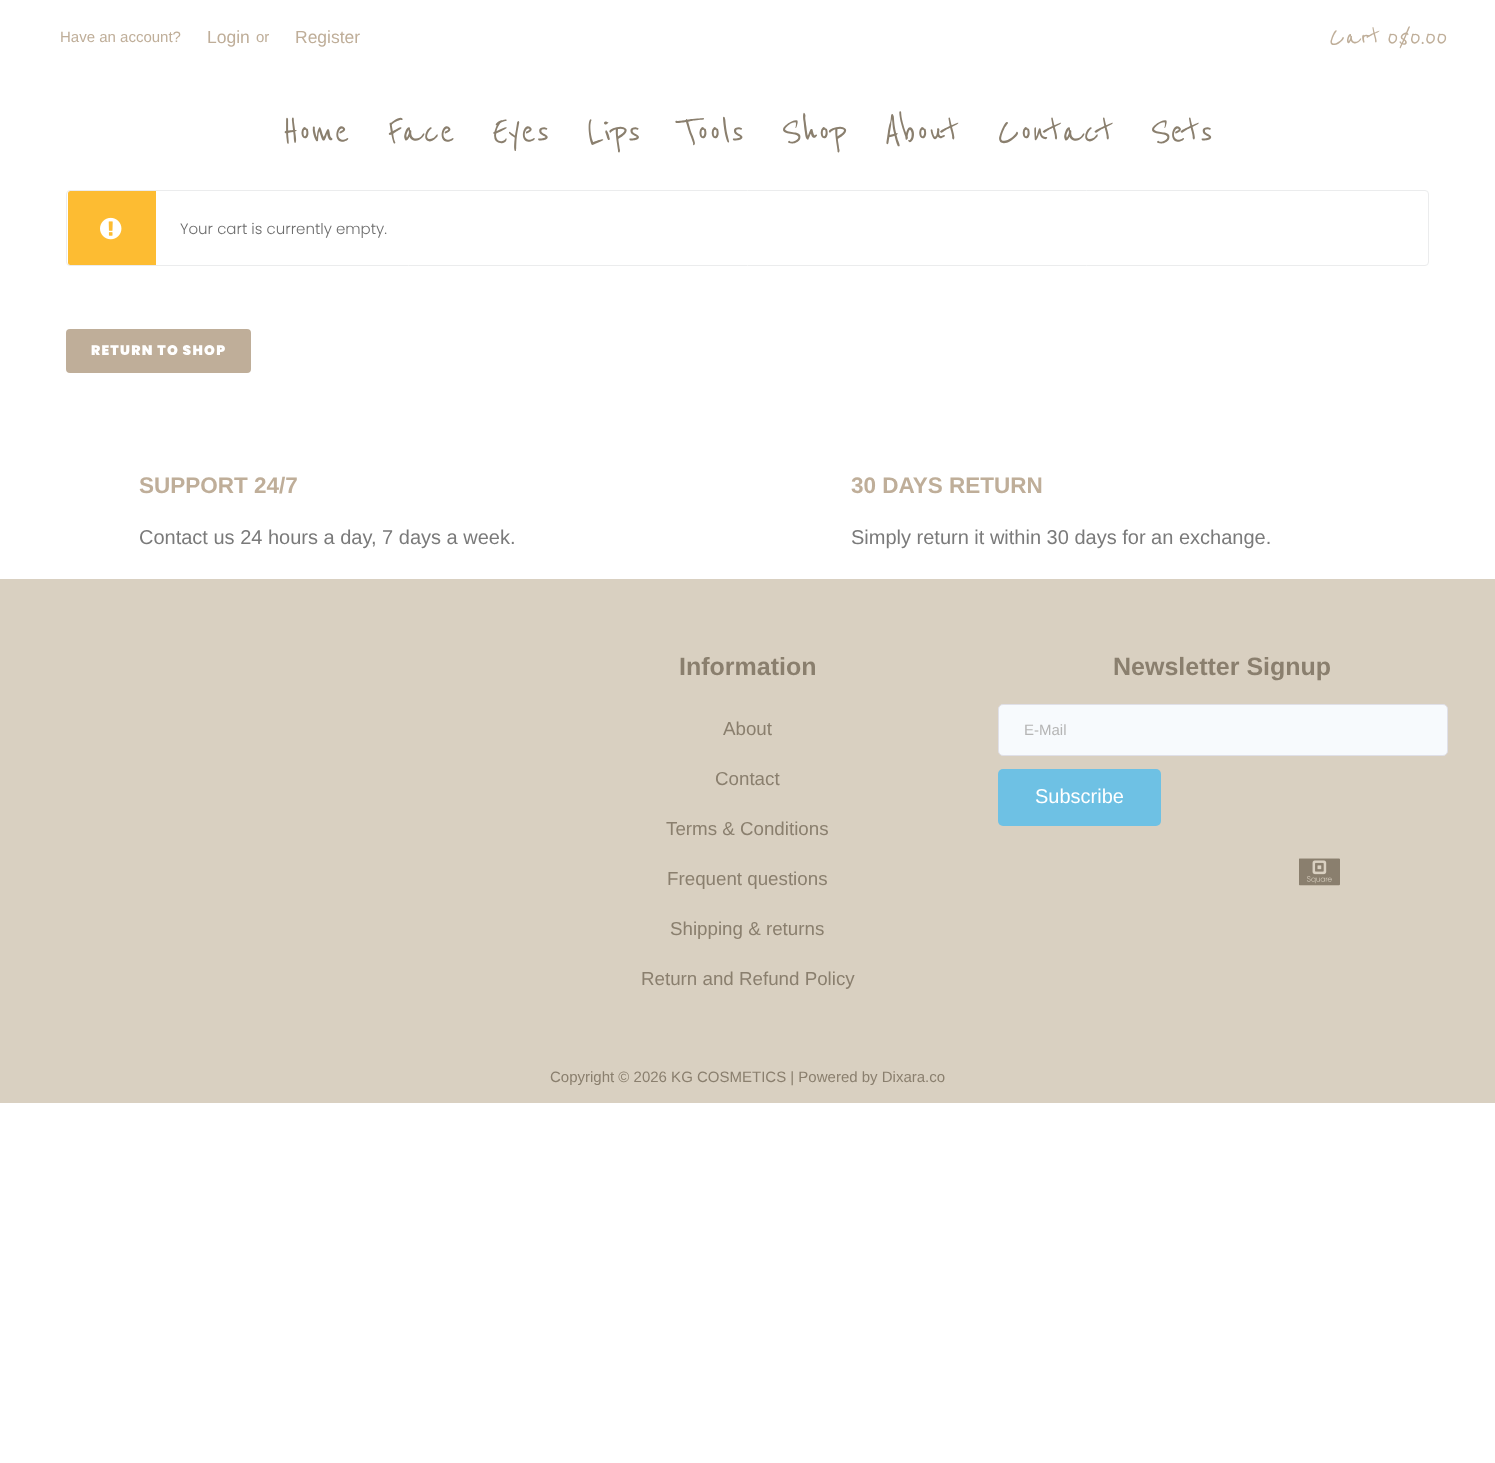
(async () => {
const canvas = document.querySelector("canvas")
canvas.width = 1495
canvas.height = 1463
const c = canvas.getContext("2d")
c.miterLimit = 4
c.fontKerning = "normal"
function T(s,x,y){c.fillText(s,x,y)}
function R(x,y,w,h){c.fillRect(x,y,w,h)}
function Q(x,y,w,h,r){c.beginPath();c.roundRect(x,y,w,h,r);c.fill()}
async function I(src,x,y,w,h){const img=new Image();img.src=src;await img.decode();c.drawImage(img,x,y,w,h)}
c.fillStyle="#fff"
R(0,0,1495,1463)
c.font="15px Liberation Sans"
c.fillStyle="#bfae99"
T("Have an account?",60,42)
c.font="17.5px Liberation Sans"
T("Login",207,43)
c.font="15px Liberation Sans"
T("or",256,42)
c.font="17.5px Liberation Sans"
T("Register",295,43)
c.font="500 31px Reenie Beanie"
T("Cart",1329,45)
T("0$0.00",1387,45)
c.font="500 44px Reenie Beanie"
c.fillStyle="#8a7f6e"
T("Home",282,143)
T("Face",387,143)
T("Eyes",492,143)
T("Lips",587,143)
T("Tools",678,143)
T("Shop",781,143)
T("About",884,143)
T("Contact",997,143)
T("Sets",1150,143)
c.beginPath()
c.roundRect(66.5,190.5,1362,75,3.5)
c.strokeStyle="#ebeced"
c.stroke()
c.save()
c.beginPath()
c.roundRect(68,191,1360,74,2.5)
c.clip()
c.fillStyle="#fdbc32"
c.beginPath()
c.roundRect(66,190,90,76,[4,0,0,4])
c.fill()
c.restore()
await I("1.png",100,217,22,23)
c.font="300 15px Poppins"
c.fillStyle="#6d6d6d"
T("Your cart is currently empty.",180,234)
c.fillStyle="#bfae99"
Q(66,329,185,44,4)
c.letterSpacing="1.25px"
c.font="900 13.75px Poppins"
c.fillStyle="#fff"
T("RETURN TO SHOP",91,355)
c.letterSpacing="0px"
c.font="bold 22.5px Liberation Sans"
c.fillStyle="#bfae99"
T("SUPPORT 24/7",139,493)
c.font="20px Liberation Sans"
c.fillStyle="#7a7a7a"
T("Contact us 24 hours a day, 7 days a week.",139,544)
c.font="bold 22.5px Liberation Sans"
c.fillStyle="#bfae99"
T("30 DAYS RETURN",851,493)
c.font="20px Liberation Sans"
c.fillStyle="#7a7a7a"
T("Simply return it within 30 days for an exchange.",851,544)
c.fillStyle="#d9d0c1"
R(0,579,1495,524)
c.font="bold 25px Liberation Sans"
c.fillStyle="#8a7f6e"
T("Information",679,675)
c.font="18.75px Liberation Sans"
T("About",723,735)
T("Contact",715,785)
T("Terms & Conditions",666,835)
T("Frequent questions",667,885)
T("Shipping & returns",670,935)
T("Return and Refund Policy",641,985)
c.font="bold 25px Liberation Sans"
T("Newsletter Signup",1113,675)
c.fillStyle="#f7fafd"
c.beginPath()
c.roundRect(998.5,704.5,449,51,4.5)
c.fill()
c.strokeStyle="#e0e0e8"
c.stroke()
c.font="15px Liberation Sans"
c.fillStyle="#b5b5b5"
T("E-Mail",1024,735)
c.fillStyle="#6ec1e4"
Q(998,769,163,57,5)
c.font="20px Liberation Sans"
c.fillStyle="#fff"
T("Subscribe",1035,803)
await I("2.png",1299,858,41,28)
c.font="15px Liberation Sans"
c.fillStyle="#8a7f6e"
T("Copyright © 2026 KG COSMETICS | Powered by Dixara.co",550,1082)
})()
